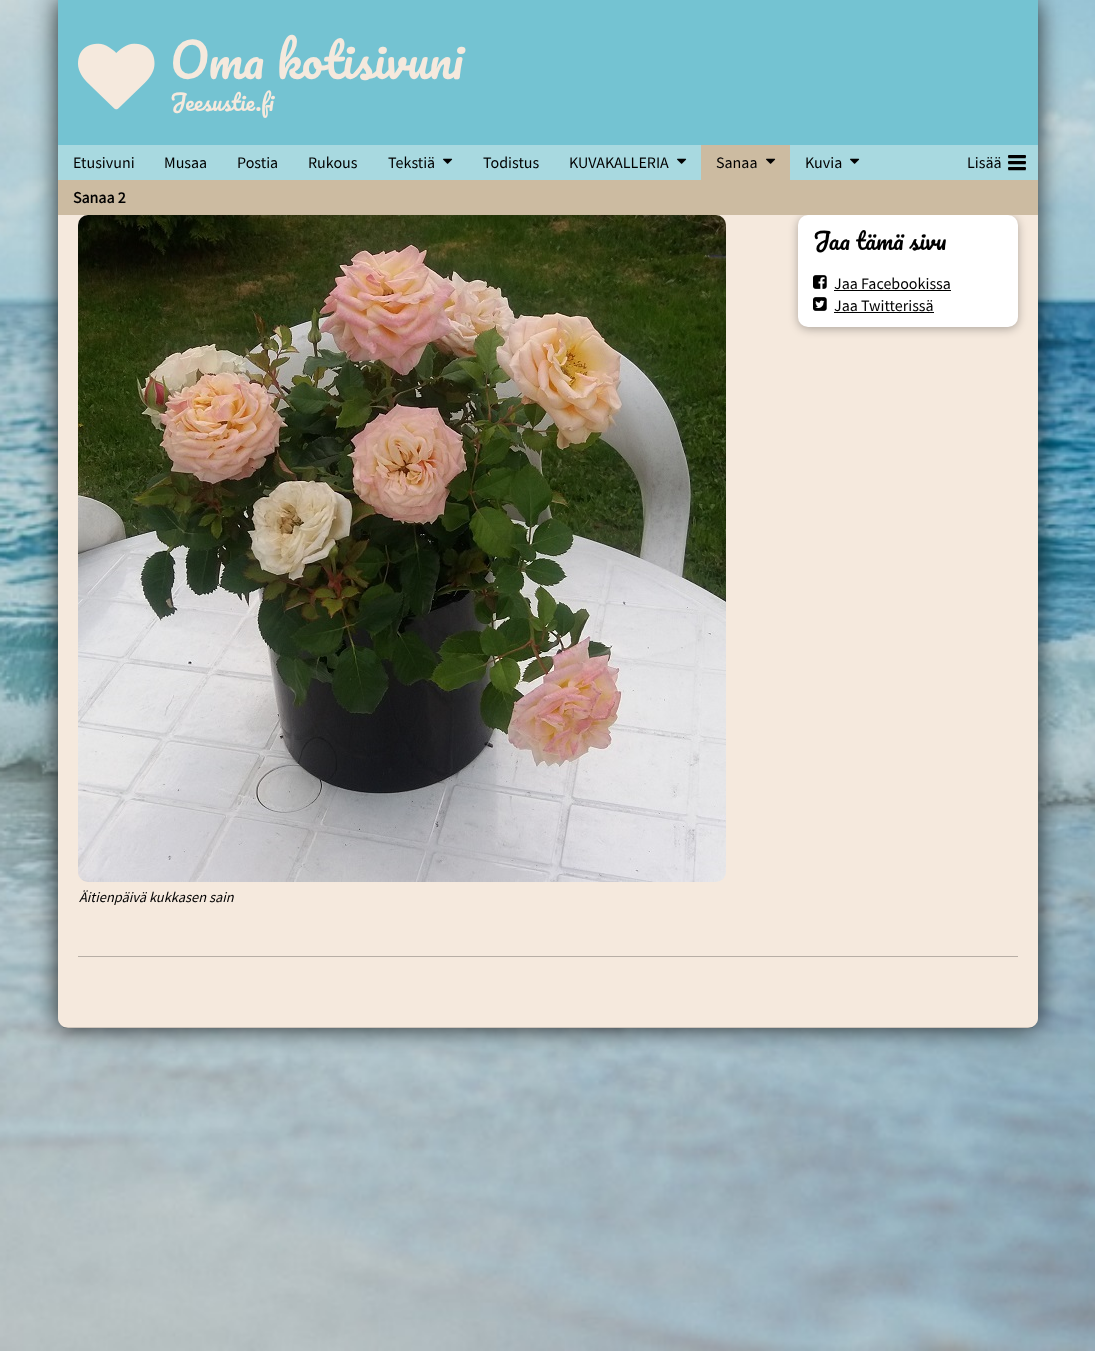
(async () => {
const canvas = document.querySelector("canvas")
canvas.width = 1095
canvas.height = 1351
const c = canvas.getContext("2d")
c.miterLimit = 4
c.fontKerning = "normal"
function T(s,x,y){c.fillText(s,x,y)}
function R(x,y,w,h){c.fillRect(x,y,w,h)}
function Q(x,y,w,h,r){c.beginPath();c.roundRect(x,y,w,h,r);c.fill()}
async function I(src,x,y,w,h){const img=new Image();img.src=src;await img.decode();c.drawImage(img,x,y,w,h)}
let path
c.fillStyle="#fff"
R(0,0,1095,1351)
await I("1.png",0,0,1095,1351)
c.fillStyle="#000000cc"
c.filter="blur(12px)"
c.beginPath()
c.roundRect(58,0,980,1028,10)
c.fill()
c.filter="none"
c.fillStyle="#f5e9dd"
c.beginPath()
c.roundRect(58,0,980,1028,[0,0,10,10])
c.fill()
c.fillStyle="#00000026"
R(63,1027,970,1)
c.fillStyle="#74c3d2"
R(58,0,980,145)
await I("2.png",78,43,77,67)
c.font="47px Pacifico"
c.fillStyle="#f5e9dd"
T("Oma kotisivuni",170,79)
c.font="22px Pacifico"
T("Jeesustie.fi",170,111)
c.fillStyle="#a8d9e0"
R(58,145,980,35)
c.font="16px Source Sans Pro"
c.fillStyle="#000"
T("Etusivuni",73,168)
T("Postia",237,168)
T("Rukous",308,168)
T("Tekstiä",388,168)
await I("3.png",443,158,10,6)
T("Todistus",483,168)
T("Kuvia",805,168)
await I("3.png",850,158,10,6)
T("Lisää",967,168)
c.fillStyle="#7ea3a8"
path = new Path2D("M1008 157c0 2.5 1 2 3.5 2h11c2.5 0 3.5 .5 3.5-2c0 .5-.5 1-1 1h-16c-.5 0-1-.5-1-1z")
c.fill(path)
c.fillStyle="#000"
Q(1008,155,18,3,1)
c.fillStyle="#7ea3a8"
path = new Path2D("M1008 163c0 2.5 1 2 3.5 2h11c2.5 0 3.5 .5 3.5-2c0 .5-.5 1-1 1h-16c-.5 0-1-.5-1-1z")
c.fill(path)
c.fillStyle="#000"
Q(1008,161,18,3,1)
c.fillStyle="#7ea3a8"
path = new Path2D("M1008 169c0 2.5 1 2 3.5 2h11c2.5 0 3.5 .5 3.5-2c0 .5-.5 1-1 1h-16c-.5 0-1-.5-1-1z")
c.fill(path)
c.fillStyle="#000"
Q(1008,167,18,3,1)
c.fillStyle="#ccbba1"
R(701,145,89,35)
c.fillStyle="#000"
T("Sanaa",716,168)
await I("4.png",766,158,10,6)
c.fillStyle="#0000004a"
c.filter="blur(5px)"
c.beginPath()
c.roundRect(798,217,220,112,10)
c.fill()
c.filter="none"
c.fillStyle="#ccbba1"
R(58,180,980,35)
c.font="bold 16px Source Sans Pro"
c.fillStyle="#000"
T("Sanaa 2",73,203)
c.font="16px Source Sans Pro"
T("Musaa",164,168)
T("KUVAKALLERIA",569,168)
await I("3.png",677,158,10,6)
c.fillStyle="#fff"
Q(798,215,220,112,10)
c.font="23px Pacifico"
c.fillStyle="#000"
T("Jaa tämä sivu",813,250)
await I("5.png",813,275,14,14)
c.font="16px Source Sans Pro"
T("Jaa Facebookissa",834,289)
R(834,290,117,1)
await I("6.png",813,297,14,14)
T("Jaa Twitterissä",834,311)
R(834,312,100,1)
await I("7.png",78,215,648,667)
c.font="italic 14.4px Source Sans Pro"
T("Äitienpäivä kukkasen sain",79,902)
c.fillStyle="#f5e9dd"
c.beginPath()
c.roundRect(58,956,980,71,[0,0,10,10])
c.fill()
c.fillStyle="#b7aea5"
R(78,956,940,1)
})()
